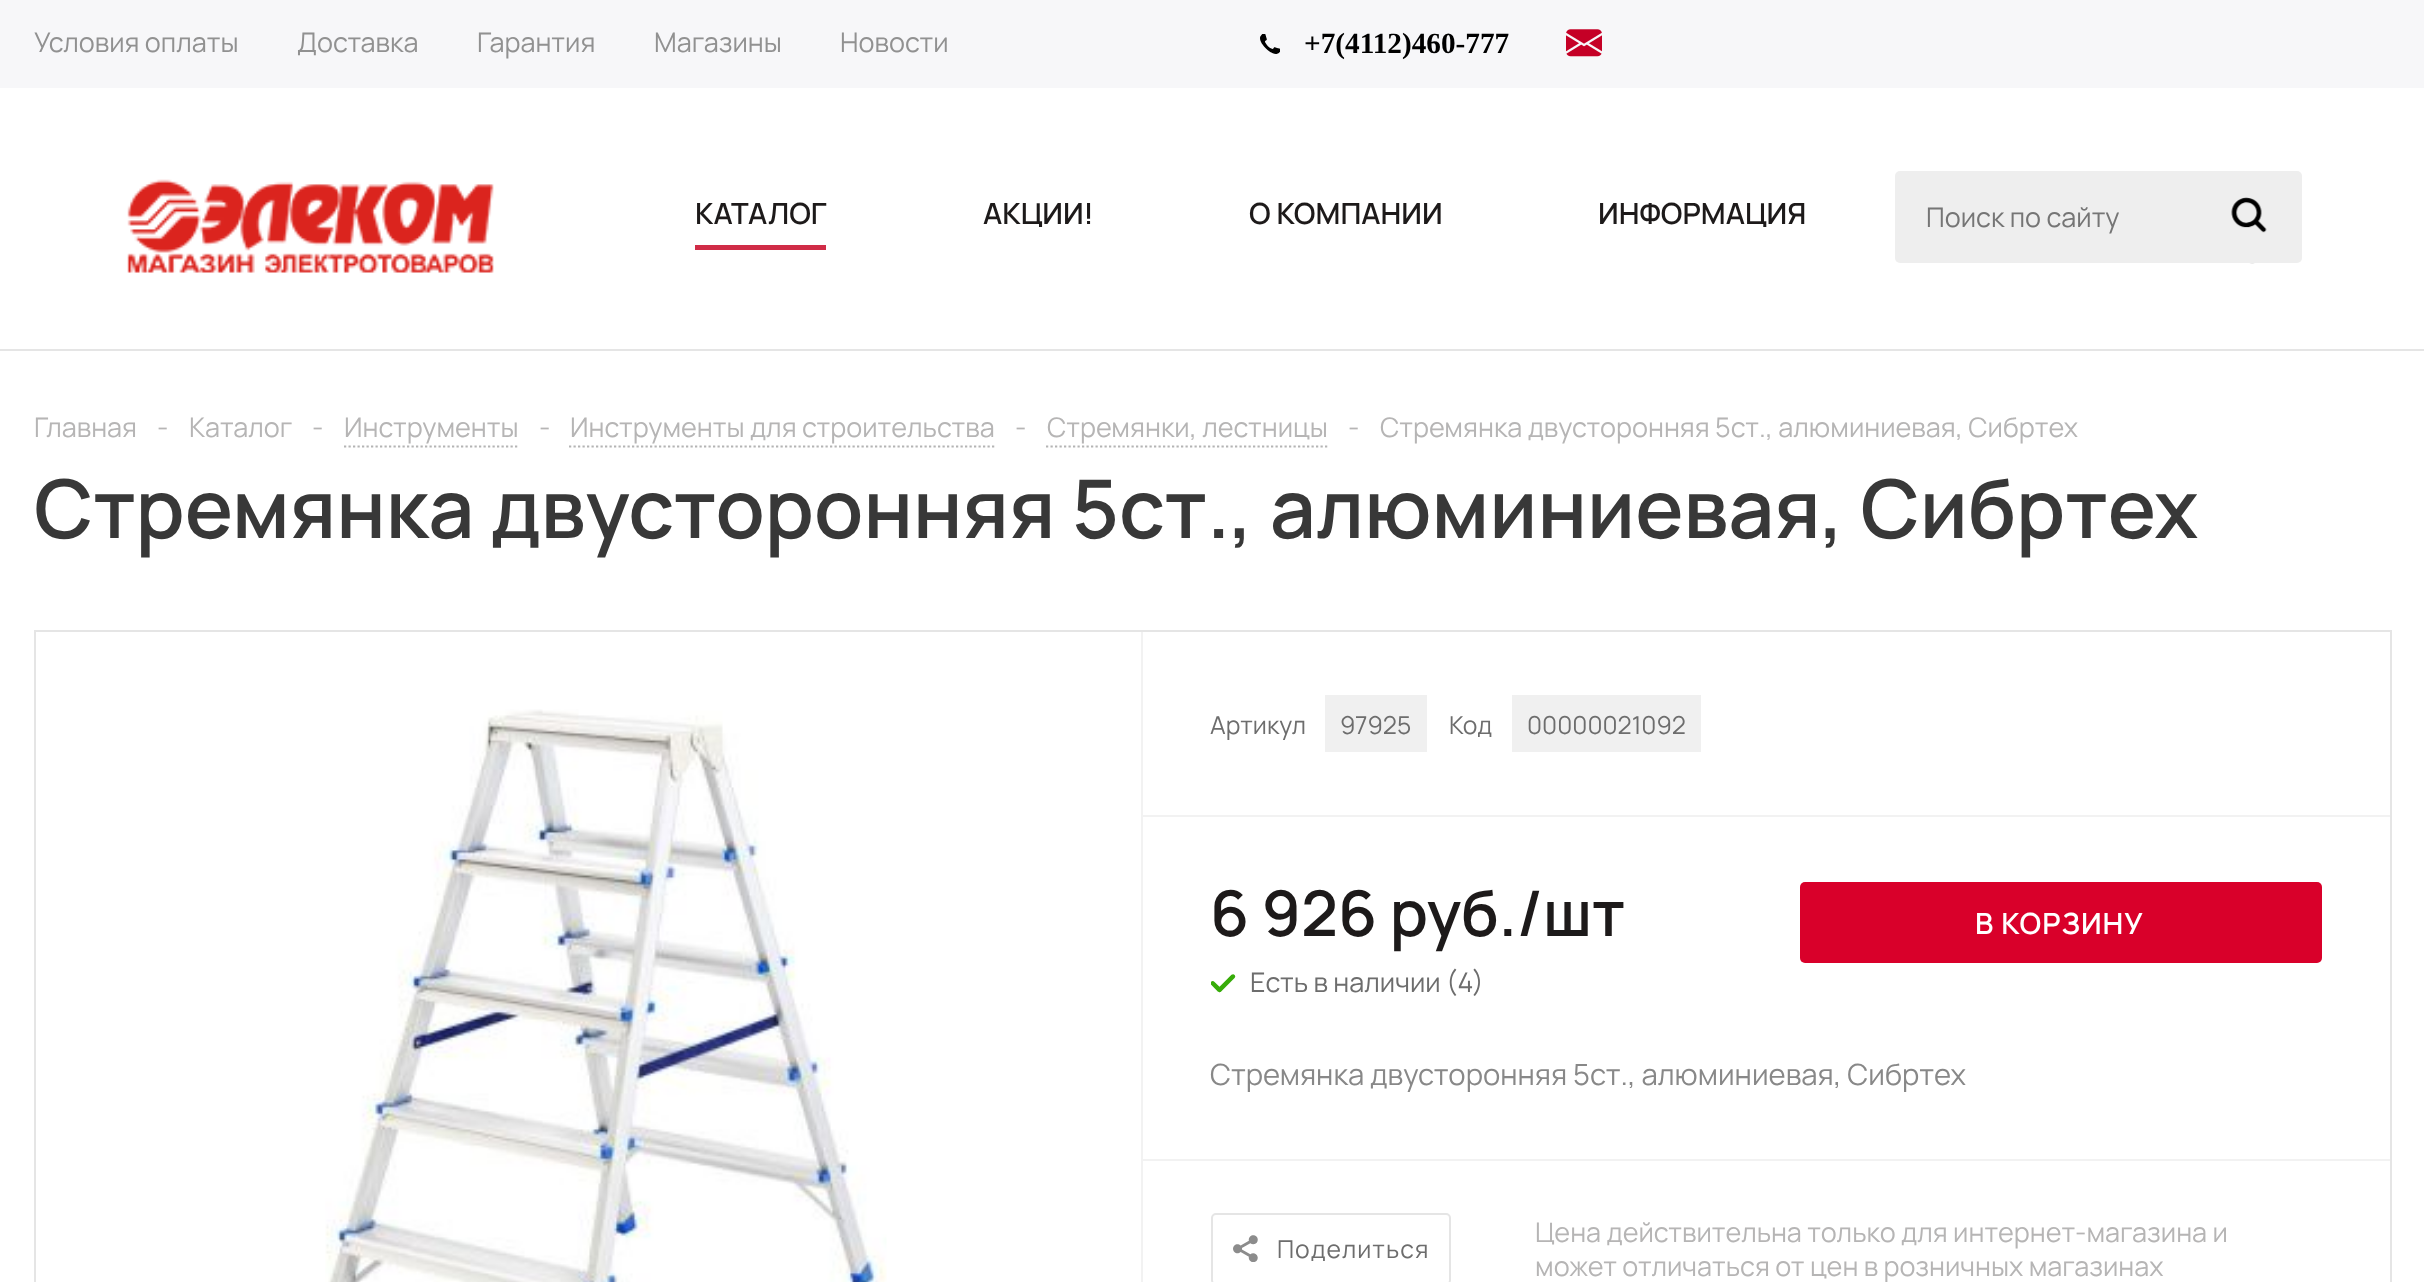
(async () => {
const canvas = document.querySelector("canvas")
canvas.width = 2424
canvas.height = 1282
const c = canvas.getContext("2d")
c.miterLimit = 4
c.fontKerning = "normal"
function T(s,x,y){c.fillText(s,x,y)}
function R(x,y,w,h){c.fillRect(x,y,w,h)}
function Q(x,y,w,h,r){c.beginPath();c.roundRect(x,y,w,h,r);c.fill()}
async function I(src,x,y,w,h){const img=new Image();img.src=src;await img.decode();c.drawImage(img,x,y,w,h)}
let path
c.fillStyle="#fff"
R(0,0,2424,1282)
c.fillStyle="#f7f7f9"
R(0,0,2424,88)
c.font="27px Manrope"
c.fillStyle="#919191"
T("Условия оплаты",34,52)
T("Доставка",297,52)
T("Гарантия",477,52)
T("Магазины",654,52)
T("Новости",840,52)
await I("1.png",1260,34,20,20)
c.font="bold 29.25px Liberation Serif"
c.fillStyle="#000"
T("+7(4112)460-777",1304,53)
await I("2.png",1566,29,36,28)
c.fillStyle="#e5e5e5"
R(0,349,2424,2)
await I("3.png",127,179,367,94)
c.fillStyle="#d02c47"
R(695,245,131,5)
c.font="600 29.25px Manrope"
c.fillStyle="#1d1a1a"
T("КАТАЛОГ",695,224)
T("АКЦИИ!",983,224)
T("О КОМПАНИИ",1249,224)
T("ИНФОРМАЦИЯ",1598,224)
c.fillStyle="#eee"
Q(1895,171,407,92,5)
c.font="27px Manrope"
c.fillStyle="#757575"
T("Поиск по сайту",1926,227)
await I("4.png",2231,197,36,67)
c.fillStyle="#b6b5b5"
T("Главная",34,437)
T("-",157,437)
T("Каталог",189,437)
T("-",312,437)
T("Инструменты",344,437)
path = new Path2D("M344 446.5h173.5")
c.strokeStyle="#b4b4b4"
c.lineWidth=2.2
c.setLineDash([2.25,2.25])
c.stroke(path)
T("-",539,437)
T("Инструменты для строительства",570,437)
path = new Path2D("M569 446.5h425.5")
c.stroke(path)
T("-",1015,437)
T("Стремянки, лестницы",1047,437)
path = new Path2D("M1046 446.5h281.5")
c.stroke(path)
T("-",1348,437)
T("Стремянка двусторонняя 5ст., алюминиевая, Сибртех",1380,437)
c.font="600 81px Manrope"
c.fillStyle="#383838"
T("Стремянка двусторонняя 5ст., алюминиевая, Сибртех",34,538)
c.strokeStyle="#e5e5e5"
c.lineWidth=2
c.setLineDash([])
c.strokeRect(35,631,2356,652)
await I("5.png",325,709,562,573)
c.fillStyle="#f2f2f2"
R(1141,632,2,650)
R(1143,815,1247,2)
c.font="24.75px Manrope"
c.fillStyle="#6d6d6d"
T("Артикул",1210,734)
c.fillStyle="#f0f0f0"
R(1325,695,102,57)
c.fillStyle="#6d6d6d"
T("97925",1340,734)
T("Код",1449,734)
c.fillStyle="#f0f0f0"
R(1512,695,189,57)
c.fillStyle="#6d6d6d"
T("00000021092",1527,734)
c.fillStyle="#f2f2f2"
R(1143,1159,1247,2)
c.font="600 63px Manrope"
c.fillStyle="#1d1a1a"
T("6 926 руб./шт",1210,936)
await I("6.png",1211,974,25,19)
c.font="27px Manrope"
c.fillStyle="#6d6d6d"
T("Есть в наличии (4)",1250,992)
c.fillStyle="#d9002a"
Q(1800,882,522,81,5)
c.letterSpacing="1px"
c.font="600 29.25px Manrope"
c.fillStyle="#fff"
T("В КОРЗИНУ",1975,934)
c.letterSpacing="0px"
c.font="29.25px Manrope"
c.fillStyle="#888"
T("Стремянка двусторонняя 5ст., алюминиевая, Сибртех",1210,1085)
c.beginPath()
c.roundRect(1212,1214,238,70,4)
c.stroke()
await I("7.png",1233,1235,25,27)
c.letterSpacing="1px"
c.font="24.75px Manrope"
c.fillStyle="#6d6d6d"
T("Поделиться",1277,1258)
c.letterSpacing="0px"
c.font="27px Manrope"
c.fillStyle="#b6b5b5"
T("Цена действительна только для интернет-магазина и",1535,1242)
T("может отличаться от цен в розничных магазинах",1535,1276)
})()
